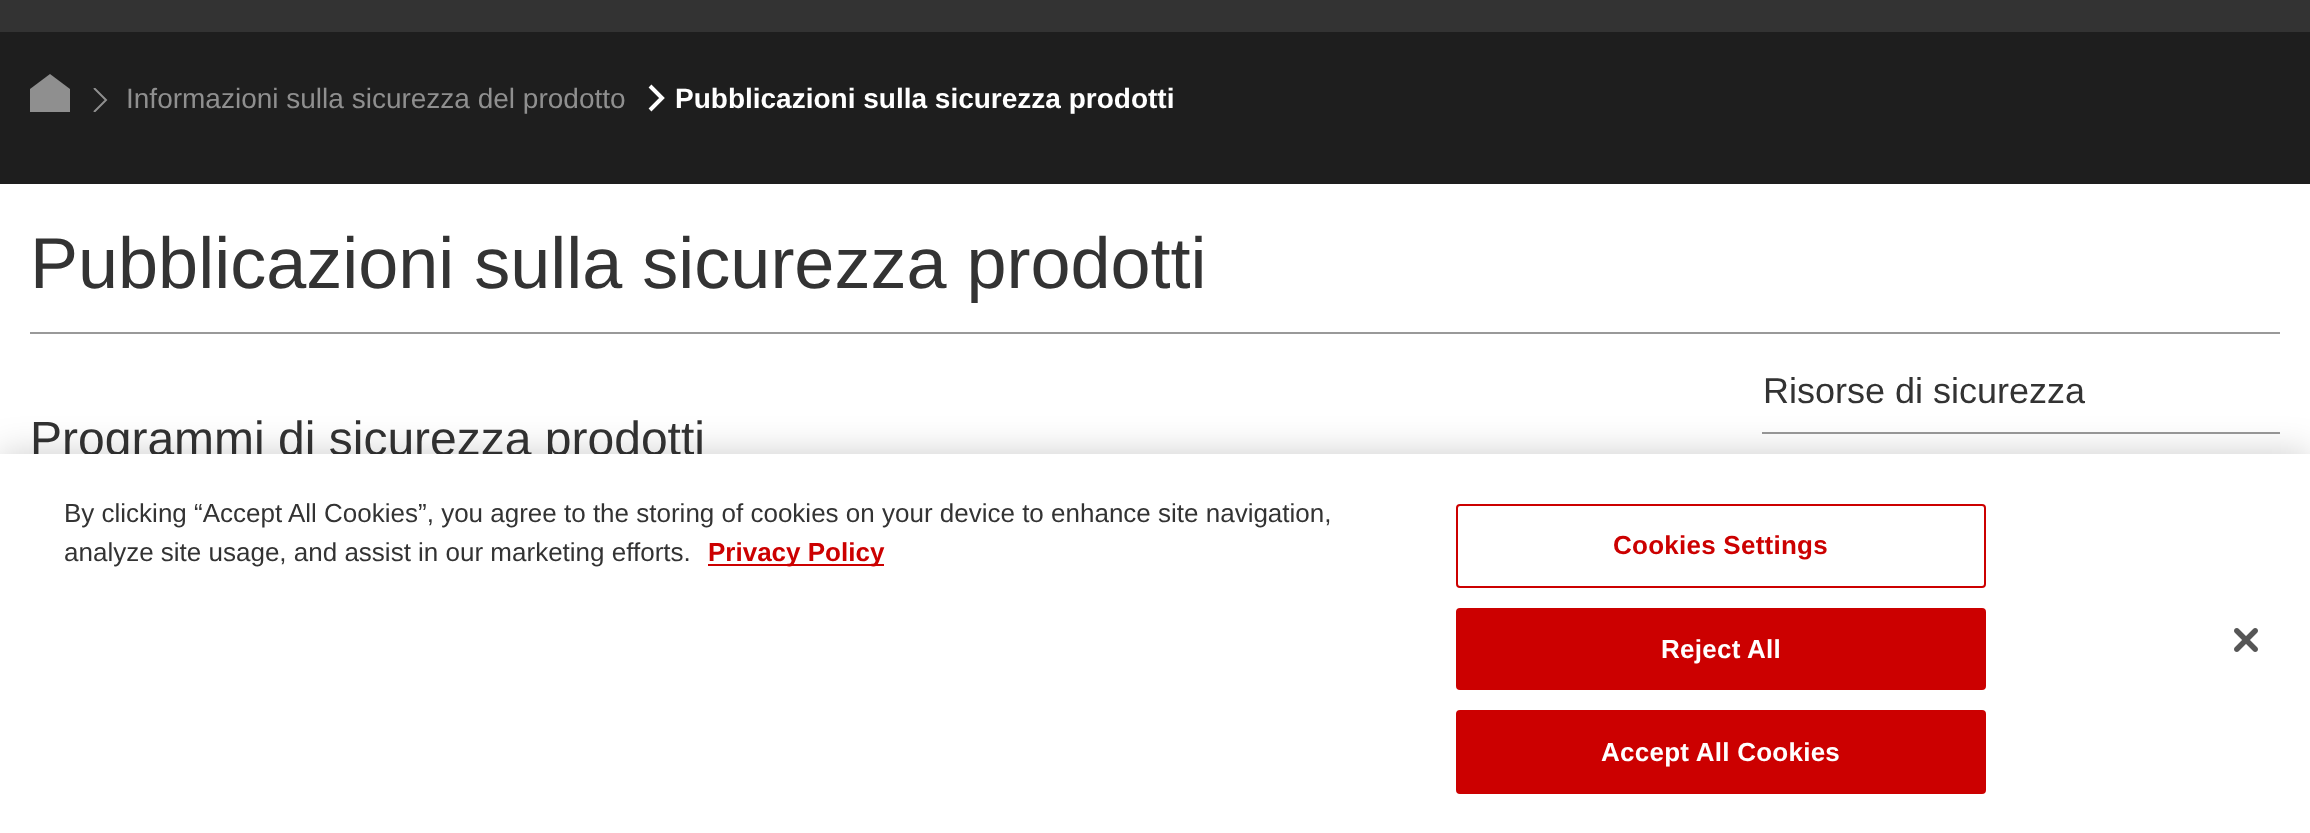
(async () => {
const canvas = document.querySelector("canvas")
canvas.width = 2310
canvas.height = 833
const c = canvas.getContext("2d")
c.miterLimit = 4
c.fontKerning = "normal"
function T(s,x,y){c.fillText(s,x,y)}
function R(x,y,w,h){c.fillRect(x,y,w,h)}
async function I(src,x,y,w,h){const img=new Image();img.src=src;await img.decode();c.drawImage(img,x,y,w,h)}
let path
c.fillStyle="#fff"
R(0,0,2310,833)
c.fillStyle="#333"
R(0,0,2310,32)
c.fillStyle="#1e1e1e"
R(0,32,2310,152)
c.fillStyle="#8f8f8f"
path = new Path2D("M30 112v-23l20-15l20 15v23z")
c.fill(path)
await I("1.png",93,88,15,24)
c.font="28px Liberation Sans"
T("Informazioni sulla sicurezza del prodotto",126,108)
await I("2.png",648,84,17,28)
c.font="bold 28px Liberation Sans"
c.fillStyle="#fff"
T("Pubblicazioni sulla sicurezza prodotti",675,108)
c.fillStyle="#999"
R(30,332,2250,2)
c.font="72px Liberation Sans"
c.fillStyle="#333"
T("Pubblicazioni sulla sicurezza prodotti",30,288)
c.fillStyle="#999"
R(1762,432,518,2)
c.font="36px Liberation Sans"
c.fillStyle="#333"
T("Risorse di sicurezza",1763,403)
c.font="48px Liberation Sans"
T("Programmi di sicurezza prodotti",30,455)
c.fillStyle="#00000033"
c.filter="blur(18px)"
c.beginPath()
c.rect(0,454,2310,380)
c.fill()
c.filter="none"
c.fillStyle="#fff"
R(0,454,2310,379)
c.font="26px Liberation Sans"
c.fillStyle="#333"
T("By clicking “Accept All Cookies”, you agree to the storing of cookies on your device to enhance site navigation,",64,522)
T("analyze site usage, and assist in our marketing efforts.",64,561)
c.fillStyle="#c00"
R(708,564,176,2)
c.font="bold 26px Liberation Sans"
T("Privacy Policy",708,561)
c.beginPath()
c.roundRect(1457,505,528,82,3)
c.strokeStyle="#c00"
c.lineWidth=2
c.stroke()
c.letterSpacing="0.25px"
T("Cookies Settings",1613,554)
c.beginPath()
c.roundRect(1457,609,528,80,3)
c.fill()
c.stroke()
c.fillStyle="#fff"
T("Reject All",1661,658)
c.fillStyle="#c00"
c.beginPath()
c.roundRect(1457,711,528,82,3)
c.fill()
c.stroke()
c.fillStyle="#fff"
T("Accept All Cookies",1601,761)
await I("3.png",2234,628,24,24)
})()
